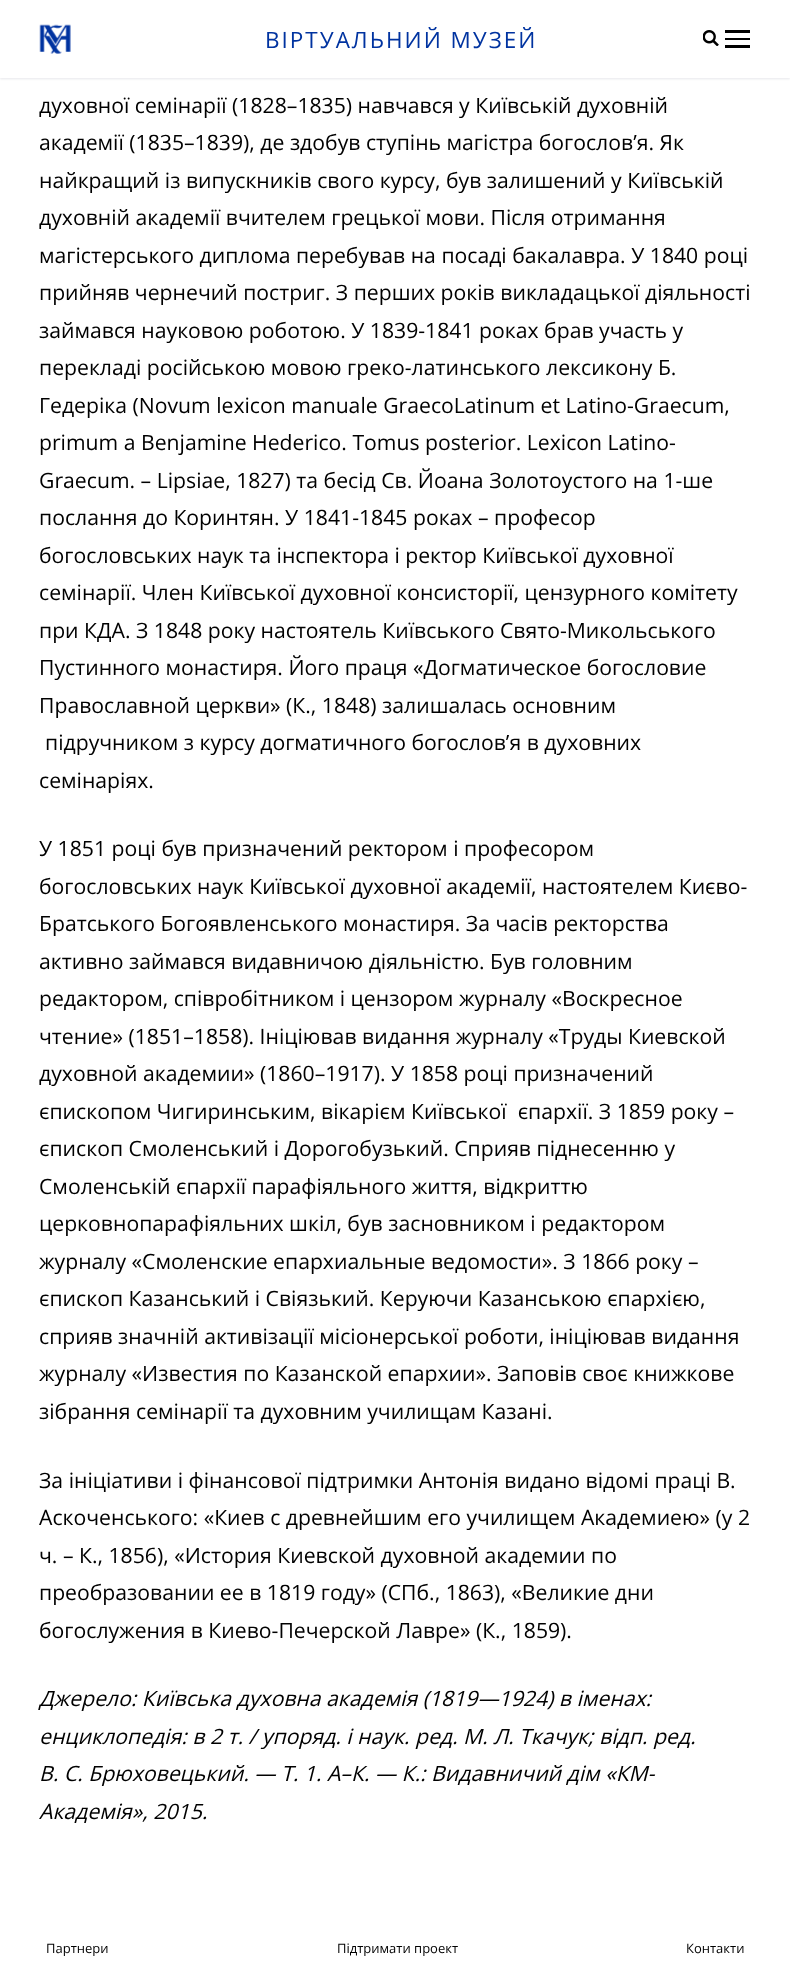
(async () => {
const canvas = document.querySelector("canvas")
canvas.width = 790
canvas.height = 1971
const c = canvas.getContext("2d")
c.miterLimit = 4
c.fontKerning = "normal"
function T(s,x,y){c.fillText(s,x,y)}
function R(x,y,w,h){c.fillRect(x,y,w,h)}
async function I(src,x,y,w,h){const img=new Image();img.src=src;await img.decode();c.drawImage(img,x,y,w,h)}
c.fillStyle="#fff"
R(0,0,790,1971)
c.fillStyle="#555c7b26"
c.filter="blur(1px)"
c.beginPath()
c.rect(0,1,790,78)
c.fill()
c.filter="none"
c.fillStyle="#fff"
R(0,0,790,78)
await I("1.png",39,24,32,30)
c.letterSpacing="2px"
c.font="22.5px Open Sans"
c.fillStyle="#0033a0"
T("ВІРТУАЛЬНИЙ МУЗЕЙ",265,48)
await I("2.png",703,30,16,16)
c.fillStyle="#000"
R(725,30,25,3)
R(725,38,25,2)
R(725,45,25,3)
c.letterSpacing="0px"
c.font="21.2px Open Sans"
T("духовної семінарії (1828–1835) навчався у Київській духовній",39,113)
T("академії (1835–1839), де здобув ступінь магістра богослов’я. Як",39,150)
T("найкращий із випускників свого курсу, був залишений у Київській",39,188)
T("духовній академії вчителем грецької мови. Після отримання",39,225)
T("магістерського диплома перебував на посаді бакалавра. У 1840 році",39,263)
T("прийняв чернечий постриг. З перших років викладацької діяльності",39,300)
T("займався науковою роботою. У 1839-1841 роках брав участь у",39,338)
T("перекладі російською мовою греко-латинського лексикону Б.",39,375)
T("Гедеріка (Novum lexicon manuale GraecoLatinum et Latino-Graecum,",39,413)
T("primum a Benjamine Hederico. Tomus posterior. Lexicon Latino-",39,450)
T("Graecum. – Lipsiae, 1827) та бесід Св. Йоана Золотоустого на 1-ше",39,488)
T("послання до Коринтян. У 1841-1845 роках – професор",39,525)
T("богословських наук та інспектора і ректор Київської духовної",39,563)
T("семінарії. Член Київської духовної консисторії, цензурного комітету",39,600)
T("при КДА. З 1848 року настоятель Київського Свято-Микольського",39,638)
T("Пустинного монастиря. Його праця «Догматическое богословие",39,675)
T("Православной церкви» (К., 1848) залишалась основним",39,713)
T("підручником з курсу догматичного богослов’я в духовних",45,750)
T("семінаріях.",39,788)
T("У 1851 році був призначений ректором і професором",39,856)
T("богословських наук Київської духовної академії, настоятелем Києво-",39,894)
T("Братського Богоявленського монастиря. За часів ректорства",39,931)
T("активно займався видавничою діяльністю. Був головним",39,969)
T("редактором, співробітником і цензором журналу «Воскресное",39,1006)
T("чтение» (1851–1858). Ініціював видання журналу «Труды Киевской",39,1044)
T("духовной академии» (1860–1917). У 1858 році призначений",39,1081)
T("єпископом Чигиринським, вікарієм Київської  єпархії. З 1859 року –",39,1119)
T("єпископ Смоленський і Дорогобузький. Сприяв піднесенню у",39,1156)
T("Смоленській єпархії парафіяльного життя, відкриттю",39,1194)
T("церковнопарафіяльних шкіл, був засновником і редактором",39,1231)
T("журналу «Смоленские епархиальные ведомости». З 1866 року –",39,1269)
T("єпископ Казанський і Свіязький. Керуючи Казанською єпархією,",39,1306)
T("сприяв значній активізації місіонерської роботи, ініціював видання",39,1344)
T("журналу «Известия по Казанской епархии». Заповів своє книжкове",39,1381)
T("зібрання семінарії та духовним училищам Казані.",39,1419)
T("За ініціативи і фінансової підтримки Антонія видано відомі праці В.",39,1488)
T("Аскоченського: «Киев с древнейшим его училищем Академиею» (у 2",39,1525)
T("ч. – К., 1856), «История Киевской духовной академии по",39,1563)
T("преобразовании ее в 1819 году» (СПб., 1863), «Великие дни",39,1600)
T("богослужения в Киево-Печерской Лавре» (К., 1859).",39,1638)
c.font="italic 21.2px Open Sans"
T("Джерело: Київська духовна академія (1819—1924) в іменах:",39,1706)
T("енциклопедія: в 2 т. / упоряд. і наук. ред. М. Л. Ткачук; відп. ред.",39,1744)
T("В. С. Брюховецький. — Т. 1. А–К. — К.: Видавничий дім «КМ-",39,1781)
T("Академія», 2015.",39,1819)
c.font="13px Open Sans"
T("Партнери",46,1953)
T("Підтримати проект",337,1953)
T("Контакти",686,1953)
})()
